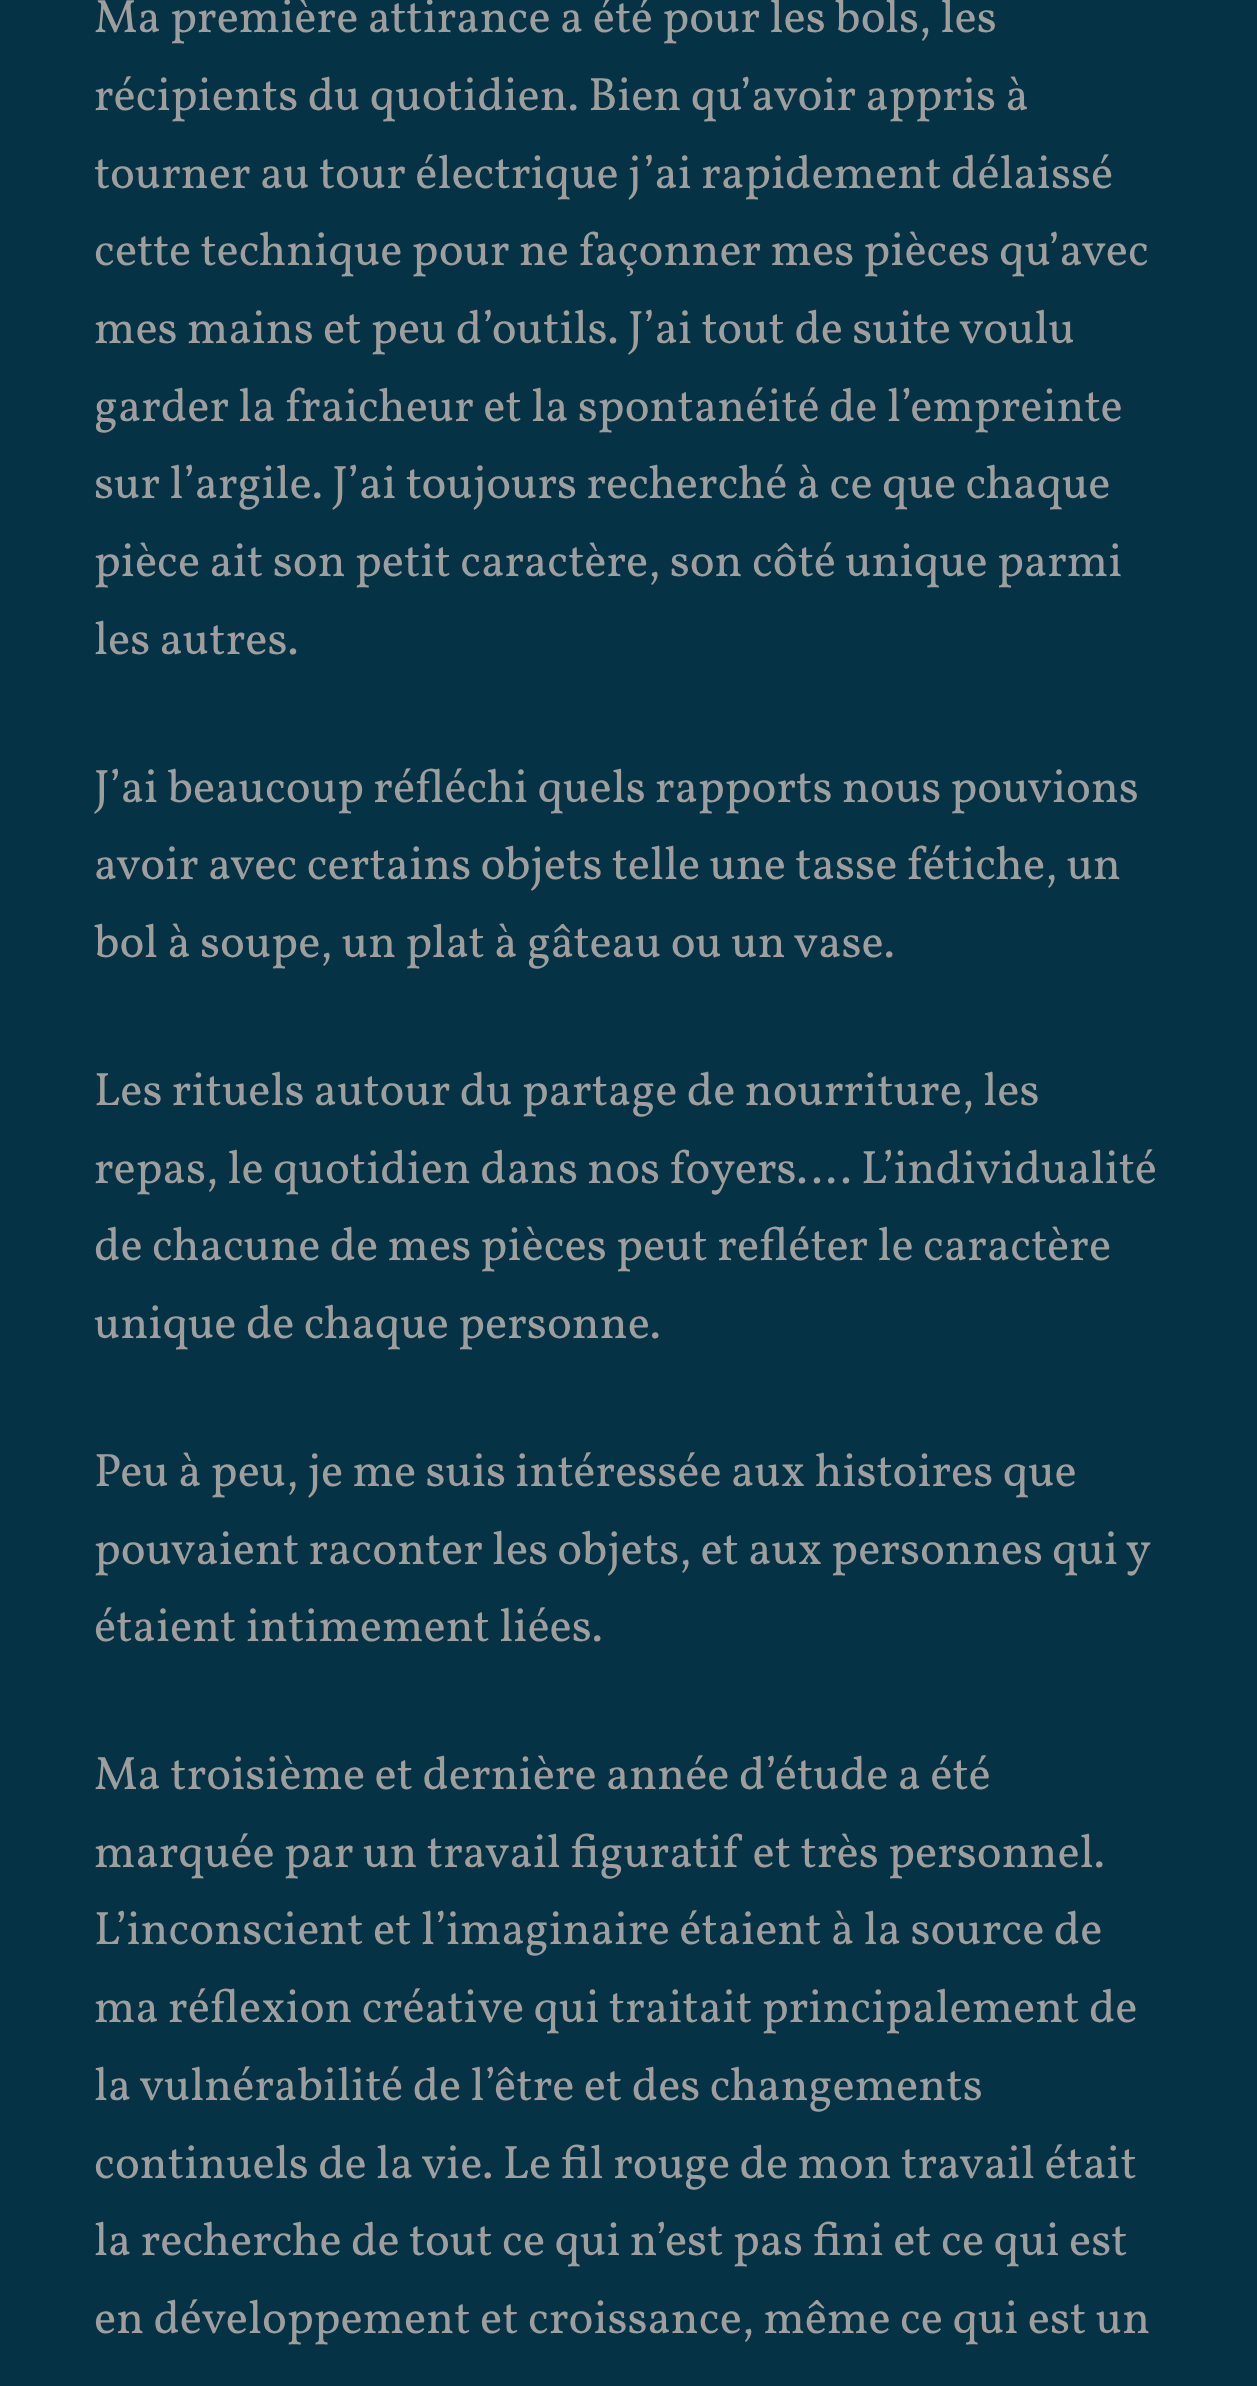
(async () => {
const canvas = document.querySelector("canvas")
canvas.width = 1257
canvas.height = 2386
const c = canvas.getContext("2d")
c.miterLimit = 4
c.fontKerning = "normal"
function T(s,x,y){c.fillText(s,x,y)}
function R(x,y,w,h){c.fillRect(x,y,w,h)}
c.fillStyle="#063245"
R(0,0,1257,2386)
c.font="46.8px Vollkorn"
c.fillStyle="#9e9e9e"
T("Ma première attirance a été pour les bols, les",94,32)
T("récipients du quotidien. Bien qu’avoir appris à",94,110)
T("tourner au tour électrique j’ai rapidement délaissé",94,188)
T("cette technique pour ne façonner mes pièces qu’avec",94,265)
T("mes mains et peu d’outils. J’ai tout de suite voulu",94,343)
T("garder la fraicheur et la spontanéité de l’empreinte",94,421)
T("sur l’argile. J’ai toujours recherché à ce que chaque",94,498)
T("pièce ait son petit caractère, son côté unique parmi",94,576)
T("les autres.",94,654)
T("J’ai beaucoup réfléchi quels rapports nous pouvions",94,802)
T("avoir avec certains objets telle une tasse fétiche, un",94,879)
T("bol à soupe, un plat à gâteau ou un vase.",94,957)
T("Les rituels autour du partage de nourriture, les",94,1105)
T("repas, le quotidien dans nos foyers…. L’individualité",94,1183)
T("de chacune de mes pièces peut refléter le caractère",94,1260)
T("unique de chaque personne.",94,1338)
T("Peu à peu, je me suis intéressée aux histoires que",94,1486)
c.wordSpacing="-0.25px"
T("pouvaient raconter les objets, et aux personnes qui y",94,1564)
c.wordSpacing="0px"
T("étaient intimement liées.",94,1641)
T("Ma troisième et dernière année d’étude a été",94,1789)
T("marquée par un travail figuratif et très personnel.",94,1867)
T("L’inconscient et l’imaginaire étaient à la source de",94,1944)
T("ma réflexion créative qui traitait principalement de",94,2022)
T("la vulnérabilité de l’être et des changements",94,2100)
T("continuels de la vie. Le fil rouge de mon travail était",94,2178)
T("la recherche de tout ce qui n’est pas fini et ce qui est",94,2255)
T("en développement et croissance, même ce qui est un",94,2333)
})()
